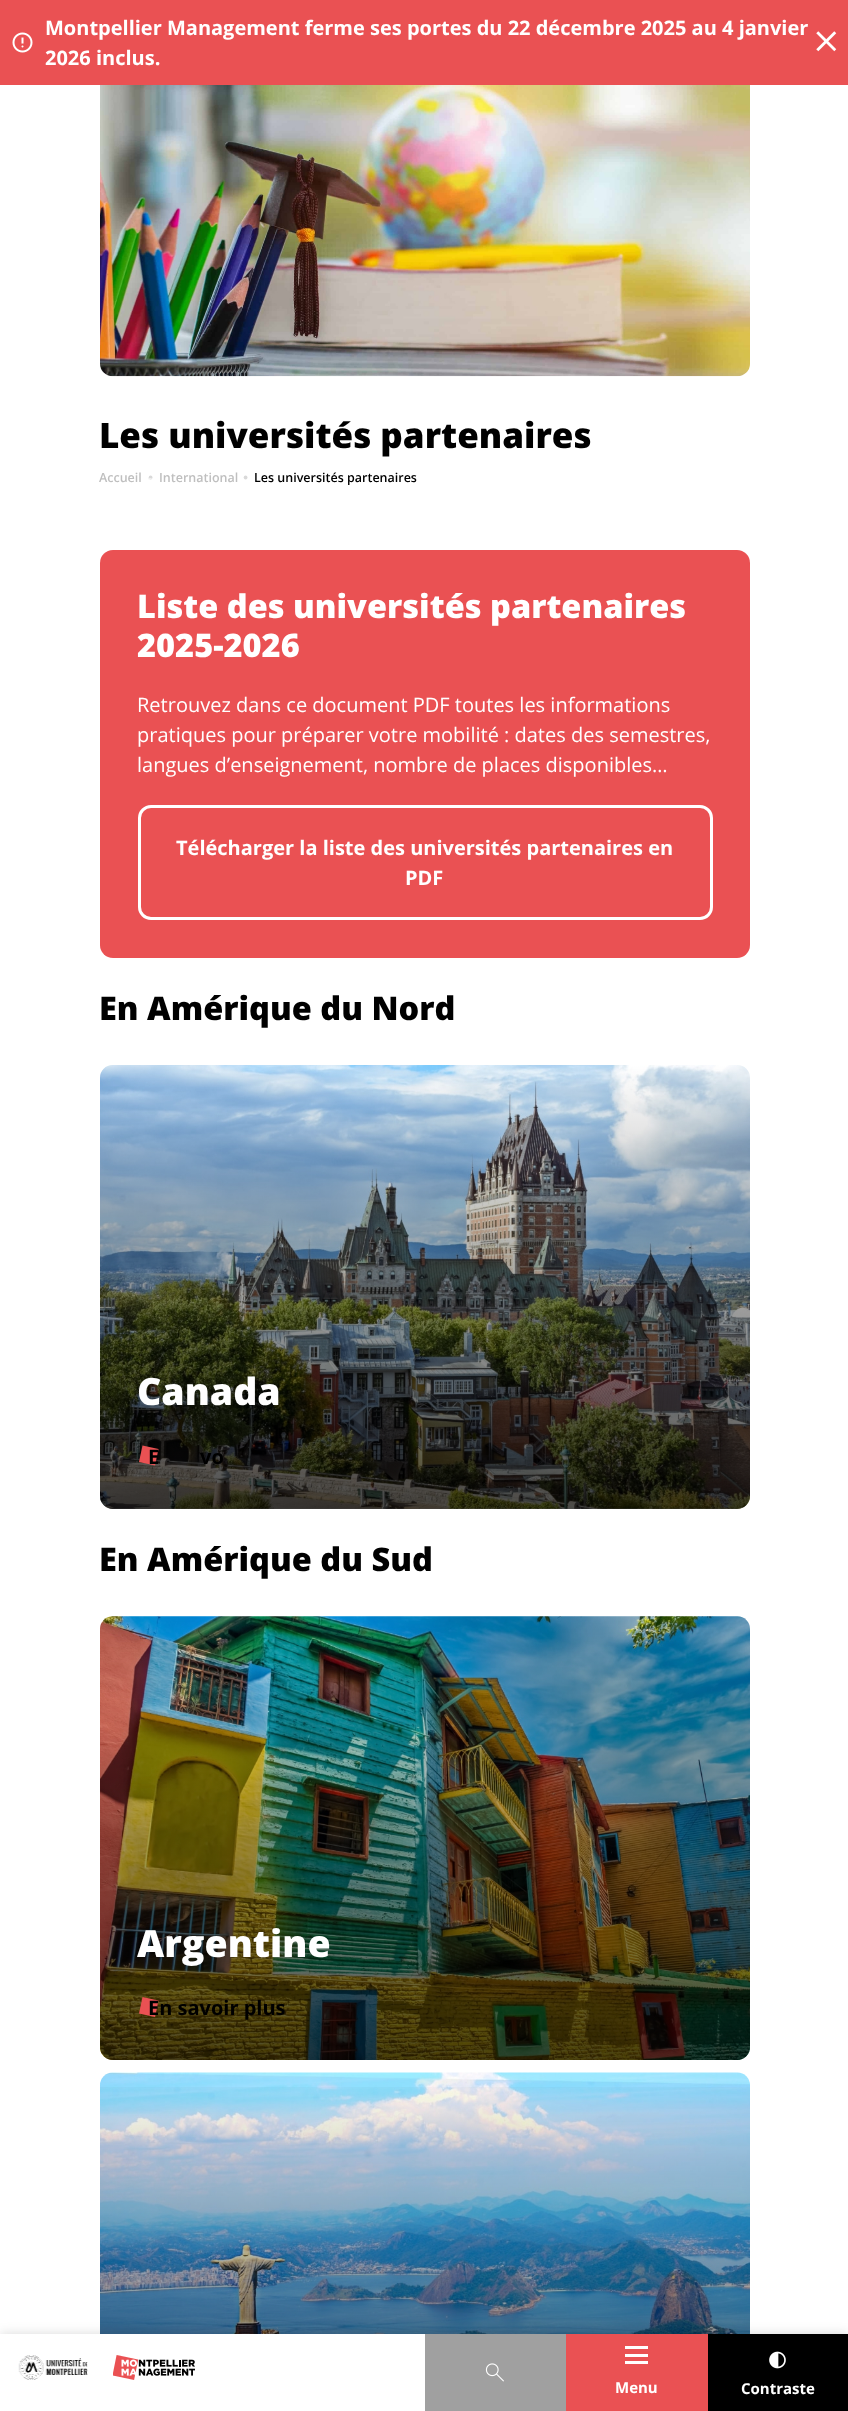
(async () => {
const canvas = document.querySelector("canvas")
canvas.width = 848
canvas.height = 2411
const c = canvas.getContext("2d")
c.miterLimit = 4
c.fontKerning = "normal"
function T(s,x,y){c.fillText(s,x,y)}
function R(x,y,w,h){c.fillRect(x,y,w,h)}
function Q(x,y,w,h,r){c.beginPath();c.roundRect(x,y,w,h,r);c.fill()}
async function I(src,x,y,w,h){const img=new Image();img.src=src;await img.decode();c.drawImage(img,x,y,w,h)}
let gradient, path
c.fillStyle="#fff"
R(0,0,848,2411)
c.fillStyle="#ea5153"
R(0,0,848,85)
await I("1.png",12,32,21,21)
c.font="bold 20px Open Sans"
c.fillStyle="#fff"
T("Montpellier Management ferme ses portes du 22 décembre 2025 au 4 janvier",45,35)
T("2026 inclus.",45,65)
await I("2.png",816,31,21,21)
await I("10.png",100,2072,650,262)
gradient = c.createLinearGradient(425,2073,425,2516)
gradient.addColorStop(0,"#00000000")
gradient.addColorStop(1,"#000000b3")
c.fillStyle = gradient
R(100,2087,650,247)
c.fillStyle="#00000026"
c.filter="blur(6px)"
c.beginPath()
c.rect(0,2334,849,77)
c.fill()
c.filter="none"
c.fillStyle="#fff"
R(0,2334,425,77)
await I("3.png",18,2355,70,25)
await I("4.png",113,2355,82,25)
c.fillStyle="#a0a0a0"
R(425,2334,141,77)
await I("5.png",485,2363,19,19)
c.fillStyle="#ea5153"
R(566,2334,142,77)
c.fillStyle="#fff"
R(625,2346,23,3)
R(625,2354,23,3)
R(625,2361,23,3)
c.font="bold 15px Open Sans"
T("Menu",615,2393)
c.fillStyle="#000"
R(708,2334,140,77)
await I("6.png",769,2351,17,18)
c.fillStyle="#fff"
T("Contraste",741,2394)
await I("7.png",100,85,650,292)
c.font="800 35px Open Sans"
c.fillStyle="#000"
T("Les universités partenaires",99,448)
c.font="600 12.5px Open Sans"
c.fillStyle="#bfbfbf"
T("Accueil",99,482)
c.fillStyle="#d9d9d9"
c.beginPath()
c.arc(150.6,477.5,1.9,0,7)
c.fill()
c.fillStyle="#efefef"
T("-",148,482)
c.fillStyle="#bfbfbf"
T("International",159,482)
c.fillStyle="#d9d9d9"
c.beginPath()
c.arc(245.6,477.5,1.9,0,7)
c.fill()
c.fillStyle="#000"
T("Les universités partenaires",254,482)
c.fillStyle="#ea5153"
Q(100,550,650,408,13)
c.font="800 32.5px Open Sans"
c.fillStyle="#fff"
T("Liste des universités partenaires",137,618)
T("2025-2026",137,657)
c.font="20px Open Sans"
T("Retrouvez dans ce document PDF toutes les informations",137,712)
T("pratiques pour préparer votre mobilité : dates des semestres,",137,742)
T("langues d’enseignement, nombre de places disponibles…",137,772)
c.beginPath()
c.roundRect(139.5,806.5,572,112,11.5)
c.strokeStyle="#fff"
c.lineWidth=3
c.stroke()
c.font="bold 20px Open Sans"
T("Télécharger la liste des universités partenaires en",176,855)
T("PDF",405,885)
c.font="800 32.5px Open Sans"
c.fillStyle="#000"
T("En Amérique du Nord",99,1020)
await I("8.png",100,1065,650,444)
gradient = c.createLinearGradient(425,1065,425,1509)
gradient.addColorStop(0,"#00000000")
gradient.addColorStop(1,"#000000b3")
c.fillStyle = gradient
Q(100,1065,650,444,13)
c.font="800 37.5px Open Sans"
c.fillStyle="#fff"
T("Canada",137,1405)
c.fillStyle="#ea5153"
path = new Path2D("M142.5 1445.5l16 3.5l-3.5 16.5l-16-3.5z")
c.fill(path)
c.font="bold 20px Open Sans"
c.fillStyle="#000"
T("E",148,1464)
T("vo",200,1464)
c.font="800 32.5px Open Sans"
T("En Amérique du Sud",99,1571)
await I("9.png",100,1616,650,444)
gradient = c.createLinearGradient(425,1616,425,2060)
gradient.addColorStop(0,"#00000000")
gradient.addColorStop(1,"#000000b3")
c.fillStyle = gradient
Q(100,1616,650,444,13)
c.font="800 37.5px Open Sans"
c.fillStyle="#fff"
T("Argentine",137,1957)
c.fillStyle="#ea5153"
path = new Path2D("M142.5 1997l16 3.5l-3.5 16.5l-16-3.5z")
c.fill(path)
c.font="bold 20px Open Sans"
c.fillStyle="#000"
T("En savoir plus",148,2015)
})()
